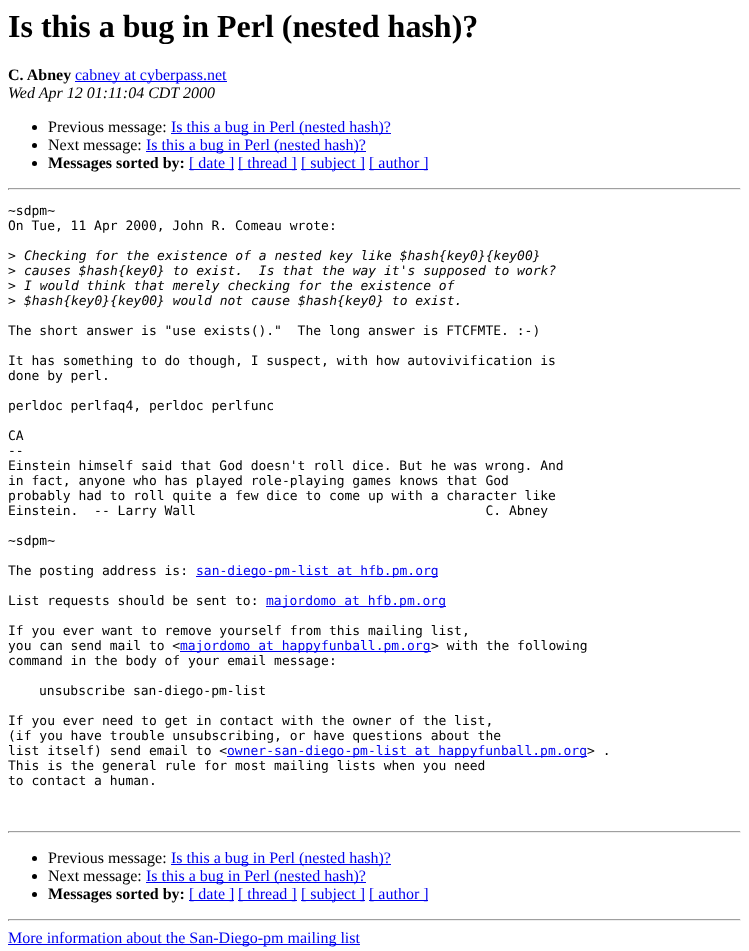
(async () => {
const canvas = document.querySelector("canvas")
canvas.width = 749
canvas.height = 951
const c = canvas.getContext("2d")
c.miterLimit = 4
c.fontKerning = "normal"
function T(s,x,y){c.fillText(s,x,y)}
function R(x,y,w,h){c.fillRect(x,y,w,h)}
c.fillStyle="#fff"
R(0,0,749,951)
c.font="bold 32px Liberation Serif"
c.fillStyle="#000"
T("Is this a bug in Perl (nested hash)?",8,37)
c.font="bold 16px Liberation Serif"
T("C. Abney",8,80)
c.fillStyle="#00e"
R(75,81,152,1)
c.font="16px Liberation Serif"
T("cabney at cyberpass.net",75,80)
c.font="italic 16px Liberation Serif"
c.fillStyle="#000"
T("Wed Apr 12 01:11:04 CDT 2000",8,98)
c.beginPath()
c.arc(34.5,127.5,2.5,0,7)
c.fill()
c.font="16px Liberation Serif"
T("Previous message:",48,132)
c.fillStyle="#00e"
R(171,133,220,1)
T("Is this a bug in Perl (nested hash)?",171,132)
c.fillStyle="#000"
c.beginPath()
c.arc(34.5,145.5,2.5,0,7)
c.fill()
T("Next message:",48,150)
c.fillStyle="#00e"
R(146,151,220,1)
T("Is this a bug in Perl (nested hash)?",146,150)
c.fillStyle="#000"
c.beginPath()
c.arc(34.5,163.5,2.5,0,7)
c.fill()
c.font="bold 16px Liberation Serif"
T("Messages sorted by:",48,168)
c.fillStyle="#00e"
R(189,169,45,1)
c.font="16px Liberation Serif"
T("[ date ]",189,168)
R(238,169,59,1)
T("[ thread ]",238,168)
R(301,169,64,1)
T("[ subject ]",301,168)
R(369,169,59,1)
T("[ author ]",369,168)
c.fillStyle="#9f9f9f"
R(8,188,733,1)
c.fillStyle="#eee"
R(740,188,1,2)
R(8,189,733,1)
c.fillStyle="#9f9f9f"
R(8,188,1,2)
c.font="13px DejaVu Sans Mono"
c.fillStyle="#000"
T("~sdpm~",8,215)
T("On Tue, 11 Apr 2000, John R. Comeau wrote:",8,230)
T(">",8,260)
c.font="italic 13px DejaVu Sans Mono"
T("Checking for the existence of a nested key like $hash{key0}{key00}",24,260)
c.font="13px DejaVu Sans Mono"
T(">",8,275)
c.font="italic 13px DejaVu Sans Mono"
T("causes $hash{key0} to exist.  Is that the way it's supposed to work?",24,275)
c.font="13px DejaVu Sans Mono"
T(">",8,290)
c.font="italic 13px DejaVu Sans Mono"
T("I would think that merely checking for the existence of",24,290)
c.font="13px DejaVu Sans Mono"
T(">",8,305)
c.font="italic 13px DejaVu Sans Mono"
T("$hash{key0}{key00} would not cause $hash{key0} to exist.",24,305)
c.font="13px DejaVu Sans Mono"
T("The short answer is \"use exists().\"  The long answer is FTCFMTE. :-)",8,335)
T("It has something to do though, I suspect, with how autovivification is",8,365)
T("done by perl.",8,380)
T("perldoc perlfaq4, perldoc perlfunc",8,410)
T("CA",8,440)
T("--",8,455)
T("Einstein himself said that God doesn't roll dice. But he was wrong. And",8,470)
T("in fact, anyone who has played role-playing games knows that God",8,485)
T("probably had to roll quite a few dice to come up with a character like",8,500)
T("Einstein.  -- Larry Wall                                     C. Abney",8,515)
T("~sdpm~",8,545)
T("The posting address is:",8,575)
c.fillStyle="#00e"
R(196,576,242,1)
T("san-diego-pm-list at hfb.pm.org",196,575)
c.fillStyle="#000"
T("List requests should be sent to:",8,605)
c.fillStyle="#00e"
R(266,606,180,1)
T("majordomo at hfb.pm.org",266,605)
c.fillStyle="#000"
T("If you ever want to remove yourself from this mailing list,",8,635)
T("you can send mail to <",8,650)
c.fillStyle="#00e"
R(180,651,251,1)
T("majordomo at happyfunball.pm.org",180,650)
c.fillStyle="#000"
T("> with the following",431,650)
T("command in the body of your email message:",8,665)
T("unsubscribe san-diego-pm-list",39,695)
T("If you ever need to get in contact with the owner of the list,",8,725)
T("(if you have trouble unsubscribing, or have questions about the",8,740)
T("list itself) send email to <",8,755)
c.fillStyle="#00e"
R(227,756,360,1)
T("owner-san-diego-pm-list at happyfunball.pm.org",227,755)
c.fillStyle="#000"
T("> .",587,755)
T("This is the general rule for most mailing lists when you need",8,770)
T("to contact a human.",8,785)
c.fillStyle="#9f9f9f"
R(8,831,733,1)
c.fillStyle="#eee"
R(740,831,1,2)
R(8,832,733,1)
c.fillStyle="#9f9f9f"
R(8,831,1,2)
c.fillStyle="#000"
c.beginPath()
c.arc(34.5,858.5,2.5,0,7)
c.fill()
c.font="16px Liberation Serif"
T("Previous message:",48,863)
c.fillStyle="#00e"
R(171,864,220,1)
T("Is this a bug in Perl (nested hash)?",171,863)
c.fillStyle="#000"
c.beginPath()
c.arc(34.5,876.5,2.5,0,7)
c.fill()
T("Next message:",48,881)
c.fillStyle="#00e"
R(146,882,220,1)
T("Is this a bug in Perl (nested hash)?",146,881)
c.fillStyle="#000"
c.beginPath()
c.arc(34.5,894.5,2.5,0,7)
c.fill()
c.font="bold 16px Liberation Serif"
T("Messages sorted by:",48,899)
c.fillStyle="#00e"
R(189,900,45,1)
c.font="16px Liberation Serif"
T("[ date ]",189,899)
R(238,900,59,1)
T("[ thread ]",238,899)
R(301,900,64,1)
T("[ subject ]",301,899)
R(369,900,59,1)
T("[ author ]",369,899)
c.fillStyle="#9f9f9f"
R(8,919,733,1)
c.fillStyle="#eee"
R(740,919,1,2)
R(8,920,733,1)
c.fillStyle="#9f9f9f"
R(8,919,1,2)
c.fillStyle="#00e"
R(8,944,352,1)
T("More information about the San-Diego-pm mailing list",8,943)
})()
